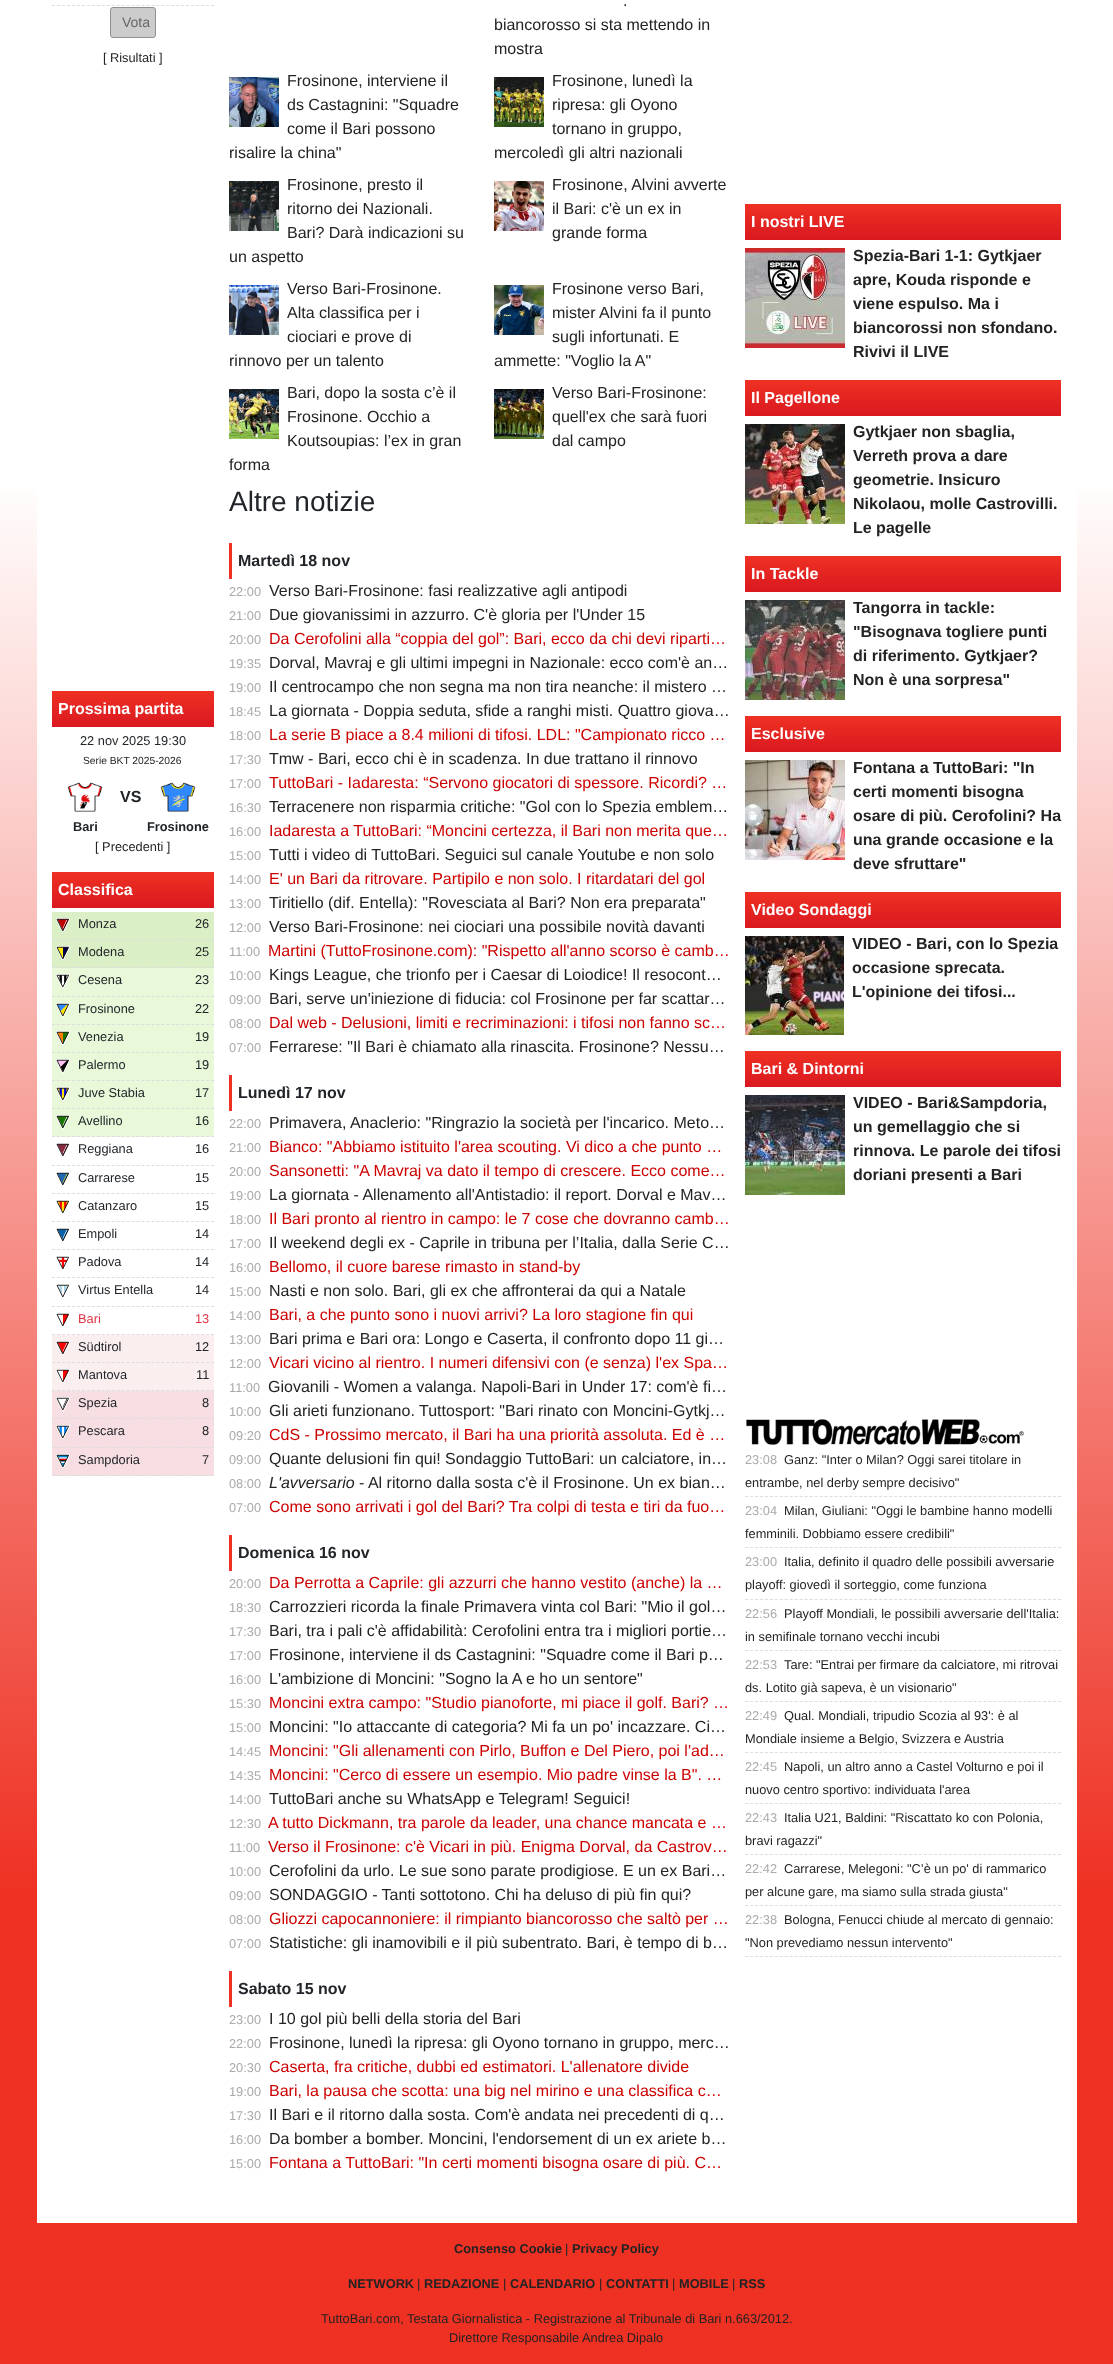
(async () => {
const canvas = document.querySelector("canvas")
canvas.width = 1113
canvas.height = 2364
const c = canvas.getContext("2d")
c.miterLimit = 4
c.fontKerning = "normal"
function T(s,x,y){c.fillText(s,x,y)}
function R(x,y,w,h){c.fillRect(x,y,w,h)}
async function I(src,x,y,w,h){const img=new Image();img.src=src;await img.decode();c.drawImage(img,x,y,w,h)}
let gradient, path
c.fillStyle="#fff"
R(0,0,1113,2364)
gradient = c.createLinearGradient(556,0,557,2364)
gradient.addColorStop(.2,"#fff")
gradient.addColorStop(.8,"#ee3123")
gradient.addColorStop(1,"#ee3123")
c.fillStyle = gradient
R(0,489,1113,1875)
c.fillStyle="#fff"
R(37,489,1040,1734)
path = new Path2D("M52 5.5h162")
c.strokeStyle="#ddd"
c.setLineDash([3,1.97])
c.stroke(path)
c.fillStyle="#ccc"
c.beginPath()
c.roundRect(110.5,7.5,45,30,2.5)
c.fill()
c.strokeStyle="#909090"
c.setLineDash([])
c.stroke()
c.font="14px Liberation Sans"
c.fillStyle="#666"
T("Vota",122,27)
c.font="12.8px Liberation Sans"
c.fillStyle="#212529"
T("[",103,62)
c.fillStyle="#232323"
T("Risultati",110,62)
c.fillStyle="#212529"
T("]",159,62)
gradient = c.createLinearGradient(133,691,133,727)
gradient.addColorStop(0,"#ee3123")
gradient.addColorStop(1,"#da1820")
c.fillStyle = gradient
R(52,691,162,36)
c.font="bold 16px Liberation Sans"
c.fillStyle="#fff"
T("Prossima partita",58,714)
c.font="12.8px Liberation Sans"
c.fillStyle="#212529"
T("22 nov 2025 19:30",80,745)
c.font="10.25px Liberation Sans"
T("Serie BKT 2025-2026",83,764)
await I("1.png",67,782,36,30)
c.font="bold 16px Liberation Sans"
T("VS",120,802)
await I("2.png",160,782,36,30)
c.font="bold 12.8px Liberation Sans"
T("Bari",73,831)
T("Frosinone",147,831)
c.font="12.8px Liberation Sans"
c.fillStyle="#232323"
T("[ Precedenti ]",95,851)
gradient = c.createLinearGradient(133,872,133,908)
gradient.addColorStop(0,"#ee3123")
gradient.addColorStop(1,"#da1820")
c.fillStyle = gradient
R(52,872,162,36)
c.font="bold 16px Liberation Sans"
c.fillStyle="#fff"
T("Classifica",58,895)
c.fillStyle="#dbefc6"
R(52,912,162,56)
path = new Path2D("M52 939.5h162")
c.strokeStyle="#ddd"
c.setLineDash([3,1.97])
c.stroke(path)
await I("3.png",56,918,14,14)
c.font="12.8px Liberation Sans"
c.fillStyle="#212529"
T("Monza",78,928)
T("26",195,928)
path = new Path2D("M52 967.5h162")
c.stroke(path)
await I("4.png",56,946,14,14)
T("Modena",78,956)
T("25",195,956)
c.fillStyle="#e8f8d9"
R(52,968,162,169)
path = new Path2D("M52 996.5h162")
c.stroke(path)
await I("5.png",56,974,14,14)
c.fillStyle="#212529"
T("Cesena",78,984)
T("23",195,984)
path = new Path2D("M52 1024.5h162")
c.stroke(path)
await I("6.png",56,1003,14,14)
T("Frosinone",78,1013)
T("22",195,1013)
path = new Path2D("M52 1052.5h162")
c.stroke(path)
await I("7.png",56,1031,14,14)
T("Venezia",78,1041)
T("19",195,1041)
path = new Path2D("M52 1080.5h162")
c.stroke(path)
await I("8.png",56,1059,14,14)
T("Palermo",78,1069)
T("19",195,1069)
path = new Path2D("M52 1108.5h162")
c.stroke(path)
await I("9.png",56,1087,14,14)
T("Juve Stabia",78,1097)
T("17",195,1097)
path = new Path2D("M52 1136.5h162")
c.stroke(path)
await I("10.png",56,1115,14,14)
T("Avellino",78,1125)
T("16",195,1125)
path = new Path2D("M52 1165.5h162")
c.stroke(path)
await I("11.png",56,1143,13,13)
T("Reggiana",78,1153)
T("16",195,1153)
path = new Path2D("M52 1193.5h162")
c.stroke(path)
await I("12.png",56,1172,13,13)
T("Carrarese",78,1182)
T("15",195,1182)
path = new Path2D("M52 1221.5h162")
c.stroke(path)
await I("13.png",56,1200,13,13)
T("Catanzaro",78,1210)
T("15",195,1210)
path = new Path2D("M52 1249.5h162")
c.stroke(path)
await I("14.png",56,1228,13,13)
T("Empoli",78,1238)
T("14",195,1238)
path = new Path2D("M52 1277.5h162")
c.stroke(path)
await I("15.png",56,1256,13,13)
T("Padova",78,1266)
T("14",195,1266)
path = new Path2D("M52 1306.5h162")
c.stroke(path)
await I("16.png",56,1284,13,13)
T("Virtus Entella",78,1294)
T("14",195,1294)
path = new Path2D("M52 1334.5h162")
c.stroke(path)
await I("17.png",56,1313,13,13)
c.fillStyle="#dc3545"
T("Bari",78,1323)
T("13",195,1323)
c.fillStyle="#faeeef"
R(52,1335,162,56)
path = new Path2D("M52 1362.5h162")
c.stroke(path)
await I("18.png",56,1341,14,14)
c.fillStyle="#212529"
T("Südtirol",78,1351)
T("12",195,1351)
path = new Path2D("M52 1390.5h162")
c.stroke(path)
await I("19.png",56,1369,14,14)
T("Mantova",78,1379)
T("11",196,1379)
c.fillStyle="#f7dee2"
R(52,1391,162,85)
path = new Path2D("M52 1418.5h162")
c.stroke(path)
await I("20.png",56,1397,14,14)
c.fillStyle="#212529"
T("Spezia",78,1407)
T("8",202,1407)
path = new Path2D("M52 1447.5h162")
c.stroke(path)
await I("21.png",56,1425,14,14)
T("Pescara",78,1435)
T("8",202,1435)
path = new Path2D("M52 1475.5h162")
c.stroke(path)
await I("22.png",56,1454,14,14)
T("Sampdoria",78,1464)
T("7",202,1464)
c.font="16px Liberation Sans"
c.fillStyle="#232323"
T(".",623,6)
T("biancorosso si sta mettendo in",494,30)
T("mostra",494,54)
await I("23.png",229,77,50,50)
T("Frosinone, interviene il",287,86)
T("ds Castagnini: \"Squadre",287,110)
T("come il Bari possono",287,134)
T("risalire la china\"",229,158)
await I("24.png",494,77,50,50)
T("Frosinone, lunedì la",552,86)
T("ripresa: gli Oyono",552,110)
T("tornano in gruppo,",552,134)
T("mercoledì gli altri nazionali",494,158)
await I("25.png",229,181,50,50)
T("Frosinone, presto il",287,190)
T("ritorno dei Nazionali.",287,214)
T("Bari? Darà indicazioni su",287,238)
T("un aspetto",229,262)
await I("26.png",494,181,50,50)
T("Frosinone, Alvini avverte",552,190)
T("il Bari: c'è un ex in",552,214)
T("grande forma",552,238)
await I("27.png",229,285,50,50)
T("Verso Bari-Frosinone.",287,294)
T("Alta classifica per i",287,318)
T("ciociari e prove di",287,342)
T("rinnovo per un talento",229,366)
await I("28.png",494,285,50,50)
T("Frosinone verso Bari,",552,294)
T("mister Alvini fa il punto",552,318)
T("sugli infortunati. E",552,342)
T("ammette: \"Voglio la A\"",494,366)
await I("29.png",229,389,50,50)
T("Bari, dopo la sosta c’è il",287,398)
T("Frosinone. Occhio a",287,422)
T("Koutsoupias: l’ex in gran",287,446)
T("forma",229,470)
await I("30.png",494,389,50,50)
T("Verso Bari-Frosinone:",552,398)
T("quell'ex che sarà fuori",552,422)
T("dal campo",552,446)
c.font="28px Liberation Sans"
c.fillStyle="#212529"
T("Altre notizie",229,511)
c.fillStyle="#ee3123"
R(229,543,3,36)
c.font="bold 16px Liberation Sans"
c.fillStyle="#212529"
T("Martedì 18 nov",238,566)
c.font="12.8px Liberation Sans"
c.fillStyle="#aaa"
T("22:00",229,596)
c.font="16px Liberation Sans"
c.fillStyle="#232323"
T("Verso Bari-Frosinone: fasi realizzative agli antipodi",269,596)
c.font="12.8px Liberation Sans"
c.fillStyle="#aaa"
T("21:00",229,620)
c.font="16px Liberation Sans"
c.fillStyle="#232323"
T("Due giovanissimi in azzurro. C'è gloria per l'Under 15",269,620)
c.font="12.8px Liberation Sans"
c.fillStyle="#aaa"
T("20:00",229,644)
c.font="16px Liberation Sans"
c.fillStyle="#c00"
T("Da Cerofolini alla “coppia del gol”: Bari, ecco da chi devi riparti…",269,644)
c.font="12.8px Liberation Sans"
c.fillStyle="#aaa"
T("19:35",229,668)
c.font="16px Liberation Sans"
c.fillStyle="#232323"
T("Dorval, Mavraj e gli ultimi impegni in Nazionale: ecco com'è an…",269,668)
c.font="12.8px Liberation Sans"
c.fillStyle="#aaa"
T("19:00",229,692)
c.font="16px Liberation Sans"
c.fillStyle="#232323"
T("Il centrocampo che non segna ma non tira neanche: il mistero …",269,692)
c.font="12.8px Liberation Sans"
c.fillStyle="#aaa"
T("18:45",229,716)
c.font="16px Liberation Sans"
c.fillStyle="#232323"
T("La giornata - Doppia seduta, sfide a ranghi misti. Quattro giova…",269,716)
c.font="12.8px Liberation Sans"
c.fillStyle="#aaa"
T("18:00",229,740)
c.font="16px Liberation Sans"
c.fillStyle="#c00"
T("La serie B piace a 8.4 milioni di tifosi. LDL: \"Campionato ricco …",269,740)
c.font="12.8px Liberation Sans"
c.fillStyle="#aaa"
T("17:30",229,764)
c.font="16px Liberation Sans"
c.fillStyle="#232323"
T("Tmw - Bari, ecco chi è in scadenza. In due trattano il rinnovo",269,764)
c.font="12.8px Liberation Sans"
c.fillStyle="#aaa"
T("17:00",229,788)
c.font="16px Liberation Sans"
c.fillStyle="#c00"
T("TuttoBari - Iadaresta: “Servono giocatori di spessore. Ricordi? …",269,788)
c.font="12.8px Liberation Sans"
c.fillStyle="#aaa"
T("16:30",229,812)
c.font="16px Liberation Sans"
c.fillStyle="#232323"
T("Terracenere non risparmia critiche: \"Gol con lo Spezia emblem…",269,812)
c.font="12.8px Liberation Sans"
c.fillStyle="#aaa"
T("16:00",229,836)
c.font="16px Liberation Sans"
c.fillStyle="#c00"
T("Iadaresta a TuttoBari: “Moncini certezza, il Bari non merita que…",269,836)
c.font="12.8px Liberation Sans"
c.fillStyle="#aaa"
T("15:00",229,860)
c.font="16px Liberation Sans"
c.fillStyle="#232323"
T("Tutti i video di TuttoBari. Seguici sul canale Youtube e non solo",269,860)
c.font="12.8px Liberation Sans"
c.fillStyle="#aaa"
T("14:00",229,884)
c.font="16px Liberation Sans"
c.fillStyle="#c00"
T("E' un Bari da ritrovare. Partipilo e non solo. I ritardatari del gol",269,884)
c.font="12.8px Liberation Sans"
c.fillStyle="#aaa"
T("13:00",229,908)
c.font="16px Liberation Sans"
c.fillStyle="#232323"
T("Tiritiello (dif. Entella): \"Rovesciata al Bari? Non era preparata\"",269,908)
c.font="12.8px Liberation Sans"
c.fillStyle="#aaa"
T("12:00",229,932)
c.font="16px Liberation Sans"
c.fillStyle="#232323"
T("Verso Bari-Frosinone: nei ciociari una possibile novità davanti",269,932)
c.font="12.8px Liberation Sans"
c.fillStyle="#aaa"
T("11:00",229,956)
c.font="16px Liberation Sans"
c.fillStyle="#c00"
T("Martini (TuttoFrosinone.com): \"Rispetto all'anno scorso è camb…",268,956)
c.font="12.8px Liberation Sans"
c.fillStyle="#aaa"
T("10:00",229,980)
c.font="16px Liberation Sans"
c.fillStyle="#232323"
T("Kings League, che trionfo per i Caesar di Loiodice! Il resocont…",269,980)
c.font="12.8px Liberation Sans"
c.fillStyle="#aaa"
T("09:00",229,1004)
c.font="16px Liberation Sans"
c.fillStyle="#232323"
T("Bari, serve un'iniezione di fiducia: col Frosinone per far scattar…",269,1004)
c.font="12.8px Liberation Sans"
c.fillStyle="#aaa"
T("08:00",229,1028)
c.font="16px Liberation Sans"
c.fillStyle="#c00"
T("Dal web - Delusioni, limiti e recriminazioni: i tifosi non fanno sc…",269,1028)
c.font="12.8px Liberation Sans"
c.fillStyle="#aaa"
T("07:00",229,1052)
c.font="16px Liberation Sans"
c.fillStyle="#232323"
T("Ferrarese: \"Il Bari è chiamato alla rinascita. Frosinone? Nessu…",269,1052)
c.fillStyle="#ee3123"
R(229,1075,3,36)
c.font="bold 16px Liberation Sans"
c.fillStyle="#212529"
T("Lunedì 17 nov",238,1098)
c.font="12.8px Liberation Sans"
c.fillStyle="#aaa"
T("22:00",229,1128)
c.font="16px Liberation Sans"
c.fillStyle="#232323"
T("Primavera, Anaclerio: \"Ringrazio la società per l'incarico. Meto…",269,1128)
c.font="12.8px Liberation Sans"
c.fillStyle="#aaa"
T("21:00",229,1152)
c.font="16px Liberation Sans"
c.fillStyle="#c00"
T("Bianco: \"Abbiamo istituito l'area scouting. Vi dico a che punto …",269,1152)
c.font="12.8px Liberation Sans"
c.fillStyle="#aaa"
T("20:00",229,1176)
c.font="16px Liberation Sans"
c.fillStyle="#c00"
T("Sansonetti: \"A Mavraj va dato il tempo di crescere. Ecco come…",269,1176)
c.font="12.8px Liberation Sans"
c.fillStyle="#aaa"
T("19:00",229,1200)
c.font="16px Liberation Sans"
c.fillStyle="#232323"
T("La giornata - Allenamento all'Antistadio: il report. Dorval e Mav…",269,1200)
c.font="12.8px Liberation Sans"
c.fillStyle="#aaa"
T("18:00",229,1224)
c.font="16px Liberation Sans"
c.fillStyle="#c00"
T("Il Bari pronto al rientro in campo: le 7 cose che dovranno camb…",269,1224)
c.font="12.8px Liberation Sans"
c.fillStyle="#aaa"
T("17:00",229,1248)
c.font="16px Liberation Sans"
c.fillStyle="#232323"
T("Il weekend degli ex - Caprile in tribuna per l’Italia, dalla Serie C…",269,1248)
c.font="12.8px Liberation Sans"
c.fillStyle="#aaa"
T("16:00",229,1272)
c.font="16px Liberation Sans"
c.fillStyle="#c00"
T("Bellomo, il cuore barese rimasto in stand-by",269,1272)
c.font="12.8px Liberation Sans"
c.fillStyle="#aaa"
T("15:00",229,1296)
c.font="16px Liberation Sans"
c.fillStyle="#232323"
T("Nasti e non solo. Bari, gli ex che affronterai da qui a Natale",269,1296)
c.font="12.8px Liberation Sans"
c.fillStyle="#aaa"
T("14:00",229,1320)
c.font="16px Liberation Sans"
c.fillStyle="#c00"
T("Bari, a che punto sono i nuovi arrivi? La loro stagione fin qui",269,1320)
c.font="12.8px Liberation Sans"
c.fillStyle="#aaa"
T("13:00",229,1344)
c.font="16px Liberation Sans"
c.fillStyle="#232323"
T("Bari prima e Bari ora: Longo e Caserta, il confronto dopo 11 gi…",269,1344)
c.font="12.8px Liberation Sans"
c.fillStyle="#aaa"
T("12:00",229,1368)
c.font="16px Liberation Sans"
c.fillStyle="#c00"
T("Vicari vicino al rientro. I numeri difensivi con (e senza) l'ex Spa…",269,1368)
c.font="12.8px Liberation Sans"
c.fillStyle="#aaa"
T("11:00",229,1392)
c.font="16px Liberation Sans"
c.fillStyle="#232323"
T("Giovanili - Women a valanga. Napoli-Bari in Under 17: com'è fi…",268,1392)
c.font="12.8px Liberation Sans"
c.fillStyle="#aaa"
T("10:00",229,1416)
c.font="16px Liberation Sans"
c.fillStyle="#232323"
T("Gli arieti funzionano. Tuttosport: \"Bari rinato con Moncini-Gytkj…",269,1416)
c.font="12.8px Liberation Sans"
c.fillStyle="#aaa"
T("09:20",229,1440)
c.font="16px Liberation Sans"
c.fillStyle="#c00"
T("CdS - Prossimo mercato, il Bari ha una priorità assoluta. Ed è …",269,1440)
c.font="12.8px Liberation Sans"
c.fillStyle="#aaa"
T("09:00",229,1464)
c.font="16px Liberation Sans"
c.fillStyle="#232323"
T("Quante delusioni fin qui! Sondaggio TuttoBari: un calciatore, in…",269,1464)
c.font="12.8px Liberation Sans"
c.fillStyle="#aaa"
T("08:00",229,1488)
c.font="italic 16px Liberation Sans"
c.fillStyle="#232323"
T("L'avversario",269,1488)
c.font="16px Liberation Sans"
T("- Al ritorno dalla sosta c'è il Frosinone. Un ex bian…",359,1488)
c.font="12.8px Liberation Sans"
c.fillStyle="#aaa"
T("07:00",229,1512)
c.font="16px Liberation Sans"
c.fillStyle="#c00"
T("Come sono arrivati i gol del Bari? Tra colpi di testa e tiri da fuo…",269,1512)
c.fillStyle="#ee3123"
R(229,1535,3,36)
c.font="bold 16px Liberation Sans"
c.fillStyle="#212529"
T("Domenica 16 nov",238,1558)
c.font="12.8px Liberation Sans"
c.fillStyle="#aaa"
T("20:00",229,1588)
c.font="16px Liberation Sans"
c.fillStyle="#c00"
T("Da Perrotta a Caprile: gli azzurri che hanno vestito (anche) la …",269,1588)
c.font="12.8px Liberation Sans"
c.fillStyle="#aaa"
T("18:30",229,1612)
c.font="16px Liberation Sans"
c.fillStyle="#232323"
T("Carrozzieri ricorda la finale Primavera vinta col Bari: \"Mio il gol…",269,1612)
c.font="12.8px Liberation Sans"
c.fillStyle="#aaa"
T("17:30",229,1636)
c.font="16px Liberation Sans"
c.fillStyle="#232323"
T("Bari, tra i pali c'è affidabilità: Cerofolini entra tra i migliori portie…",269,1636)
c.font="12.8px Liberation Sans"
c.fillStyle="#aaa"
T("17:00",229,1660)
c.font="16px Liberation Sans"
c.fillStyle="#232323"
T("Frosinone, interviene il ds Castagnini: \"Squadre come il Bari p…",269,1660)
c.font="12.8px Liberation Sans"
c.fillStyle="#aaa"
T("16:00",229,1684)
c.font="16px Liberation Sans"
c.fillStyle="#232323"
T("L'ambizione di Moncini: \"Sogno la A e ho un sentore\"",269,1684)
c.font="12.8px Liberation Sans"
c.fillStyle="#aaa"
T("15:30",229,1708)
c.font="16px Liberation Sans"
c.fillStyle="#c00"
T("Moncini extra campo: \"Studio pianoforte, mi piace il golf. Bari? …",269,1708)
c.font="12.8px Liberation Sans"
c.fillStyle="#aaa"
T("15:00",229,1732)
c.font="16px Liberation Sans"
c.fillStyle="#232323"
T("Moncini: \"Io attaccante di categoria? Mi fa un po' incazzare. Ci…",269,1732)
c.font="12.8px Liberation Sans"
c.fillStyle="#aaa"
T("14:45",229,1756)
c.font="16px Liberation Sans"
c.fillStyle="#c00"
T("Moncini: \"Gli allenamenti con Pirlo, Buffon e Del Piero, poi l'ad…",269,1756)
c.font="12.8px Liberation Sans"
c.fillStyle="#aaa"
T("14:35",229,1780)
c.font="16px Liberation Sans"
c.fillStyle="#c00"
T("Moncini: \"Cerco di essere un esempio. Mio padre vinse la B\". …",269,1780)
c.font="12.8px Liberation Sans"
c.fillStyle="#aaa"
T("14:00",229,1804)
c.font="16px Liberation Sans"
c.fillStyle="#232323"
T("TuttoBari anche su WhatsApp e Telegram! Seguici!",269,1804)
c.font="12.8px Liberation Sans"
c.fillStyle="#aaa"
T("12:30",229,1828)
c.font="16px Liberation Sans"
c.fillStyle="#c00"
T("A tutto Dickmann, tra parole da leader, una chance mancata e …",268,1828)
c.font="12.8px Liberation Sans"
c.fillStyle="#aaa"
T("11:00",229,1852)
c.font="16px Liberation Sans"
c.fillStyle="#c00"
T("Verso il Frosinone: c'è Vicari in più. Enigma Dorval, da Castrov…",268,1852)
c.font="12.8px Liberation Sans"
c.fillStyle="#aaa"
T("10:00",229,1876)
c.font="16px Liberation Sans"
c.fillStyle="#232323"
T("Cerofolini da urlo. Le sue sono parate prodigiose. E un ex Bari…",269,1876)
c.font="12.8px Liberation Sans"
c.fillStyle="#aaa"
T("09:00",229,1900)
c.font="16px Liberation Sans"
c.fillStyle="#232323"
T("SONDAGGIO - Tanti sottotono. Chi ha deluso di più fin qui?",269,1900)
c.font="12.8px Liberation Sans"
c.fillStyle="#aaa"
T("08:00",229,1924)
c.font="16px Liberation Sans"
c.fillStyle="#c00"
T("Gliozzi capocannoniere: il rimpianto biancorosso che saltò per …",269,1924)
c.font="12.8px Liberation Sans"
c.fillStyle="#aaa"
T("07:00",229,1948)
c.font="16px Liberation Sans"
c.fillStyle="#232323"
T("Statistiche: gli inamovibili e il più subentrato. Bari, è tempo di b…",269,1948)
c.fillStyle="#ee3123"
R(229,1971,3,36)
c.font="bold 16px Liberation Sans"
c.fillStyle="#212529"
T("Sabato 15 nov",238,1994)
c.font="12.8px Liberation Sans"
c.fillStyle="#aaa"
T("23:00",229,2024)
c.font="16px Liberation Sans"
c.fillStyle="#232323"
T("I 10 gol più belli della storia del Bari",269,2024)
c.font="12.8px Liberation Sans"
c.fillStyle="#aaa"
T("22:00",229,2048)
c.font="16px Liberation Sans"
c.fillStyle="#232323"
T("Frosinone, lunedì la ripresa: gli Oyono tornano in gruppo, merc…",269,2048)
c.font="12.8px Liberation Sans"
c.fillStyle="#aaa"
T("20:30",229,2072)
c.font="16px Liberation Sans"
c.fillStyle="#c00"
T("Caserta, fra critiche, dubbi ed estimatori. L'allenatore divide",269,2072)
c.font="12.8px Liberation Sans"
c.fillStyle="#aaa"
T("19:00",229,2096)
c.font="16px Liberation Sans"
c.fillStyle="#c00"
T("Bari, la pausa che scotta: una big nel mirino e una classifica c…",269,2096)
c.font="12.8px Liberation Sans"
c.fillStyle="#aaa"
T("17:30",229,2120)
c.font="16px Liberation Sans"
c.fillStyle="#232323"
T("Il Bari e il ritorno dalla sosta. Com'è andata nei precedenti di q…",269,2120)
c.font="12.8px Liberation Sans"
c.fillStyle="#aaa"
T("16:00",229,2144)
c.font="16px Liberation Sans"
c.fillStyle="#232323"
T("Da bomber a bomber. Moncini, l'endorsement di un ex ariete b…",269,2144)
c.font="12.8px Liberation Sans"
c.fillStyle="#aaa"
T("15:00",229,2168)
c.font="16px Liberation Sans"
c.fillStyle="#c00"
T("Fontana a TuttoBari: \"In certi momenti bisogna osare di più. C…",269,2168)
gradient = c.createLinearGradient(903,204,903,240)
gradient.addColorStop(0,"#ee3123")
gradient.addColorStop(1,"#da1820")
c.fillStyle = gradient
R(745,204,316,36)
c.font="bold 16px Liberation Sans"
c.fillStyle="#fff"
T("I nostri LIVE",751,227)
await I("31.png",745,248,100,100)
c.fillStyle="#232323"
T("Spezia-Bari 1-1: Gytkjaer",853,261)
T("apre, Kouda risponde e",853,285)
T("viene espulso. Ma i",853,309)
T("biancorossi non sfondano.",853,333)
T("Rivivi il LIVE",853,357)
gradient = c.createLinearGradient(903,380,903,416)
gradient.addColorStop(0,"#ee3123")
gradient.addColorStop(1,"#da1820")
c.fillStyle = gradient
R(745,380,316,36)
c.fillStyle="#fff"
T("Il Pagellone",751,403)
await I("32.png",745,424,100,100)
c.fillStyle="#232323"
T("Gytkjaer non sbaglia,",853,437)
T("Verreth prova a dare",853,461)
T("geometrie. Insicuro",853,485)
T("Nikolaou, molle Castrovilli.",853,509)
T("Le pagelle",853,533)
gradient = c.createLinearGradient(903,556,903,592)
gradient.addColorStop(0,"#ee3123")
gradient.addColorStop(1,"#da1820")
c.fillStyle = gradient
R(745,556,316,36)
c.fillStyle="#fff"
T("In Tackle",751,579)
await I("33.png",745,600,100,100)
c.fillStyle="#232323"
T("Tangorra in tackle:",853,613)
T("\"Bisognava togliere punti",853,637)
T("di riferimento. Gytkjaer?",853,661)
T("Non è una sorpresa\"",853,685)
gradient = c.createLinearGradient(903,716,903,752)
gradient.addColorStop(0,"#ee3123")
gradient.addColorStop(1,"#da1820")
c.fillStyle = gradient
R(745,716,316,36)
c.fillStyle="#fff"
T("Esclusive",751,739)
await I("34.png",745,760,100,100)
c.fillStyle="#232323"
T("Fontana a TuttoBari: \"In",853,773)
T("certi momenti bisogna",853,797)
T("osare di più. Cerofolini? Ha",853,821)
T("una grande occasione e la",853,845)
T("deve sfruttare\"",853,869)
gradient = c.createLinearGradient(903,892,903,928)
gradient.addColorStop(0,"#ee3123")
gradient.addColorStop(1,"#da1820")
c.fillStyle = gradient
R(745,892,316,36)
c.fillStyle="#fff"
T("Video Sondaggi",751,915)
await I("35.png",745,936,99,99)
c.fillStyle="#232323"
T("VIDEO - Bari, con lo Spezia",852,949)
T("occasione sprecata.",852,973)
T("L'opinione dei tifosi...",852,997)
gradient = c.createLinearGradient(903,1051,903,1087)
gradient.addColorStop(0,"#ee3123")
gradient.addColorStop(1,"#da1820")
c.fillStyle = gradient
R(745,1051,316,36)
c.fillStyle="#fff"
T("Bari & Dintorni",751,1074)
await I("36.png",745,1095,100,100)
c.fillStyle="#232323"
T("VIDEO - Bari&Sampdoria,",853,1108)
T("un gemellaggio che si",853,1132)
T("rinnova. Le parole dei tifosi",853,1156)
T("doriani presenti a Bari",853,1180)
await I("37.png",746,1419,278,26)
path = new Path2D("M745 1496.5h316")
c.stroke(path)
c.font="12.8px Liberation Sans"
c.fillStyle="#aaa"
T("23:08",745,1464)
c.fillStyle="#232323"
T("Ganz: \"Inter o Milan? Oggi sarei titolare in",784,1464)
T("entrambe, nel derby sempre decisivo\"",745,1487)
path = new Path2D("M745 1547.5h316")
c.stroke(path)
c.fillStyle="#aaa"
T("23:04",745,1515)
c.fillStyle="#232323"
T("Milan, Giuliani: \"Oggi le bambine hanno modelli",784,1515)
T("femminili. Dobbiamo essere credibili\"",745,1538)
path = new Path2D("M745 1599.5h316")
c.stroke(path)
c.fillStyle="#aaa"
T("23:00",745,1566)
c.fillStyle="#232323"
T("Italia, definito il quadro delle possibili avversarie",784,1566)
T("playoff: giovedì il sorteggio, come funziona",745,1589)
path = new Path2D("M745 1650.5h316")
c.stroke(path)
c.fillStyle="#aaa"
T("22:56",745,1618)
c.fillStyle="#232323"
T("Playoff Mondiali, le possibili avversarie dell'Italia:",784,1618)
T("in semifinale tornano vecchi incubi",745,1641)
path = new Path2D("M745 1701.5h316")
c.stroke(path)
c.fillStyle="#aaa"
T("22:53",745,1669)
c.fillStyle="#232323"
T("Tare: \"Entrai per firmare da calciatore, mi ritrovai",784,1669)
T("ds. Lotito già sapeva, è un visionario\"",745,1692)
path = new Path2D("M745 1752.5h316")
c.stroke(path)
c.fillStyle="#aaa"
T("22:49",745,1720)
c.fillStyle="#232323"
T("Qual. Mondiali, tripudio Scozia al 93': è al",784,1720)
T("Mondiale insieme a Belgio, Svizzera e Austria",745,1743)
path = new Path2D("M745 1803.5h316")
c.stroke(path)
c.fillStyle="#aaa"
T("22:45",745,1771)
c.fillStyle="#232323"
T("Napoli, un altro anno a Castel Volturno e poi il",784,1771)
T("nuovo centro sportivo: individuata l'area",745,1794)
path = new Path2D("M745 1854.5h316")
c.stroke(path)
c.fillStyle="#aaa"
T("22:43",745,1822)
c.fillStyle="#232323"
T("Italia U21, Baldini: \"Riscattato ko con Polonia,",784,1822)
T("bravi ragazzi\"",745,1845)
path = new Path2D("M745 1905.5h316")
c.stroke(path)
c.fillStyle="#aaa"
T("22:42",745,1873)
c.fillStyle="#232323"
T("Carrarese, Melegoni: \"C’è un po' di rammarico",784,1873)
T("per alcune gare, ma siamo sulla strada giusta\"",745,1896)
path = new Path2D("M745 1956.5h316")
c.stroke(path)
c.fillStyle="#aaa"
T("22:38",745,1924)
c.fillStyle="#232323"
T("Bologna, Fenucci chiude al mercato di gennaio:",784,1924)
T("\"Non prevediamo nessun intervento\"",745,1947)
c.font="bold 12.8px Liberation Sans"
T("Consenso Cookie",454,2253)
c.font="12.8px Liberation Sans"
T("|",565,2253)
c.font="bold 12.8px Liberation Sans"
T("Privacy Policy",572,2253)
T("NETWORK",348,2288)
c.font="12.8px Liberation Sans"
T("|",417,2288)
c.font="bold 12.8px Liberation Sans"
T("REDAZIONE",424,2288)
c.font="12.8px Liberation Sans"
T("|",503,2288)
c.font="bold 12.8px Liberation Sans"
T("CALENDARIO",510,2288)
c.font="12.8px Liberation Sans"
T("|",599,2288)
c.font="bold 12.8px Liberation Sans"
T("CONTATTI",606,2288)
c.font="12.8px Liberation Sans"
T("|",672,2288)
c.font="bold 12.8px Liberation Sans"
T("MOBILE",679,2288)
c.font="12.8px Liberation Sans"
T("|",732,2288)
c.font="bold 12.8px Liberation Sans"
T("RSS",739,2288)
c.font="12.8px Liberation Sans"
T("TuttoBari.com, Testata Giornalistica - Registrazione al Tribunale di Bari n.663/2012.",321,2323)
T("Direttore Responsabile Andrea Dipalo",449,2342)
})()
